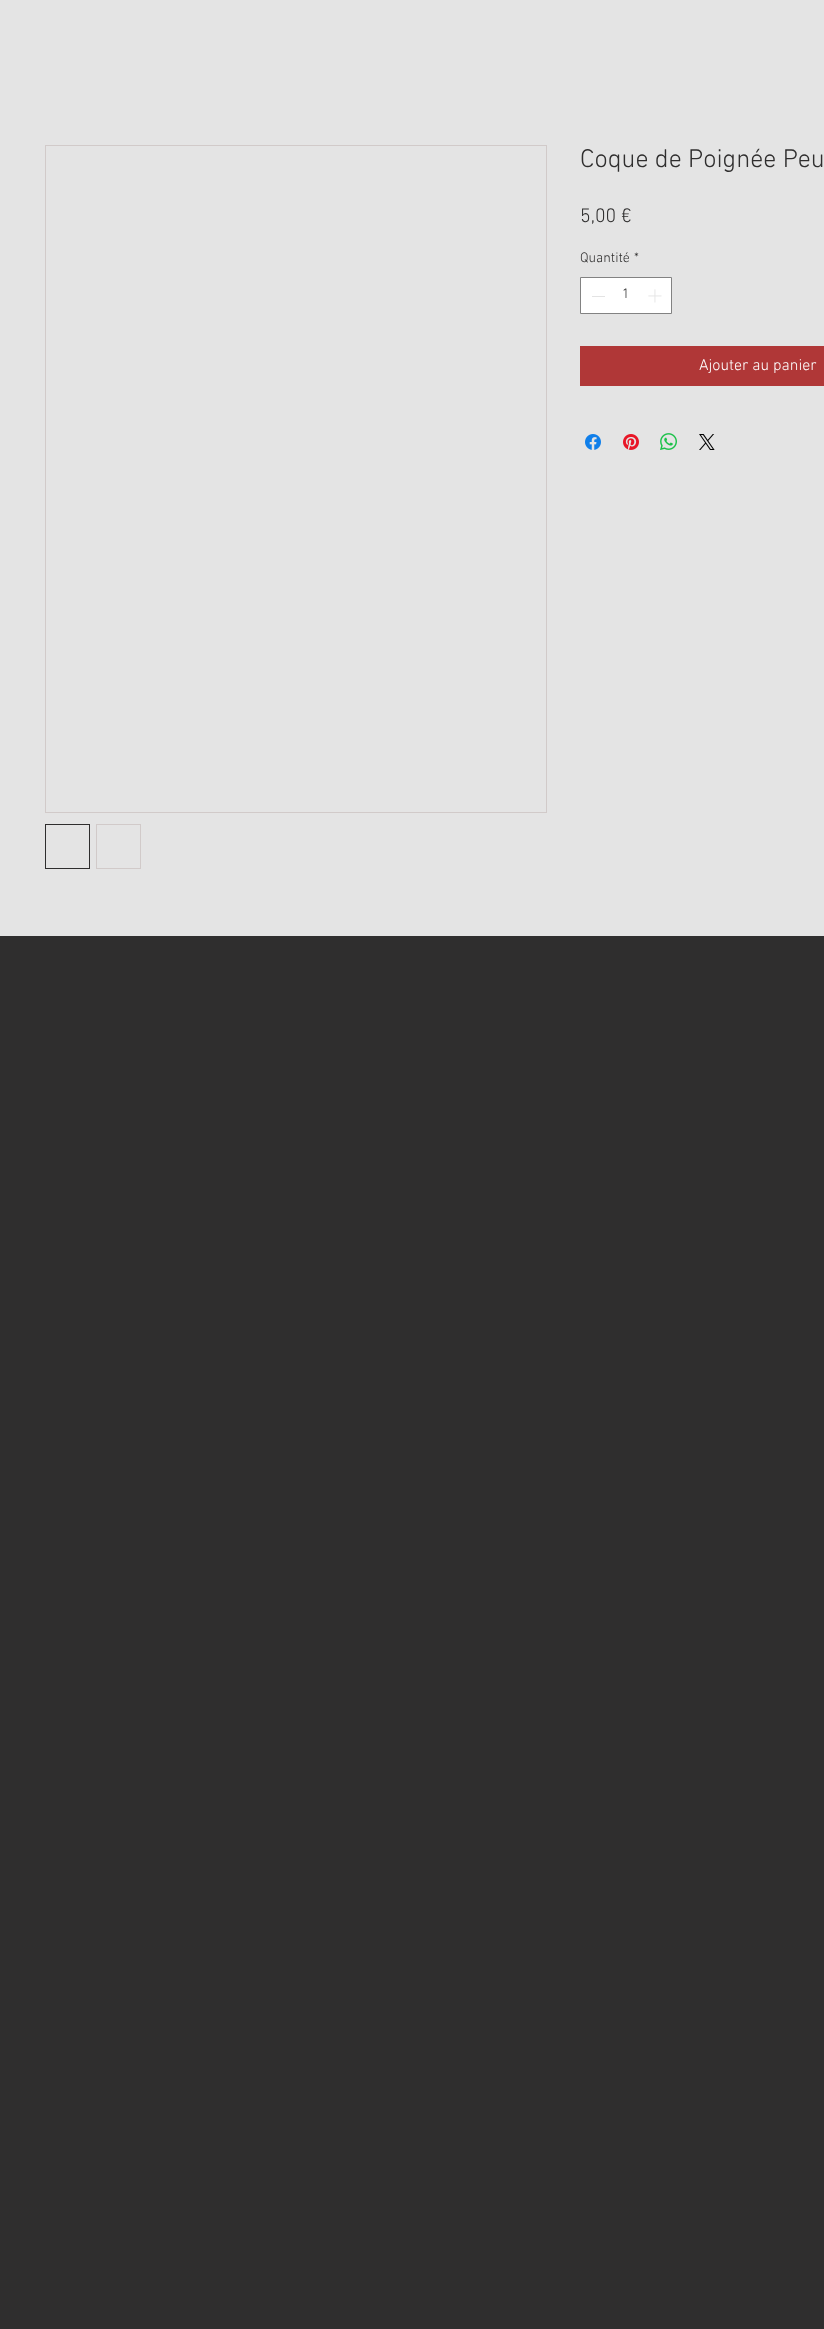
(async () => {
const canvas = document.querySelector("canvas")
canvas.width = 824
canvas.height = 2329
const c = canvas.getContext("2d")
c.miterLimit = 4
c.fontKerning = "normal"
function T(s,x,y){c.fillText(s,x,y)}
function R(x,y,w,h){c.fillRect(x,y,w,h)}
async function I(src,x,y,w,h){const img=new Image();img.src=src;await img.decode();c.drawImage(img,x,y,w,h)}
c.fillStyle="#2f2e2e"
R(0,0,824,2329)
c.fillStyle="#e4e4e4"
R(0,0,824,936)
c.strokeStyle="#d1cac9"
c.strokeRect(45.5,145.5,501,667)
c.strokeStyle="#2f2e2e"
c.strokeRect(45.5,824.5,44,44)
c.strokeStyle="#d1cac9"
c.strokeRect(96.5,824.5,44,44)
c.font="300 26px 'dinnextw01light'"
c.fillStyle="#2f2e2e"
T("Coque de Poignée Peu",580,167)
c.font="300 20px 'dinnextw01light'"
T("5,00 €",580,222)
c.font="300 14px 'dinnextw01light'"
T("Quantité",580,262)
T("*",634,262)
c.fillStyle="#fff"
c.beginPath()
c.rect(580.5,277.5,91,36)
c.fill()
c.strokeStyle="#828282"
c.stroke()
c.fillStyle="#e3e3e3"
R(592,296,13,1)
c.fillStyle="#2f2e2e"
T("1",622,298)
await I("1.png",648,289,14,14)
c.fillStyle="#b03737"
R(580,346,244,40)
c.font="300 16px 'dinnextw01light'"
c.fillStyle="#fff"
T("Ajouter au panier",699,370)
await I("2.png",585,434,16,16)
await I("3.png",623,434,16,16)
await I("4.png",660,433,17,17)
await I("5.png",699,434,16,16)
})()
